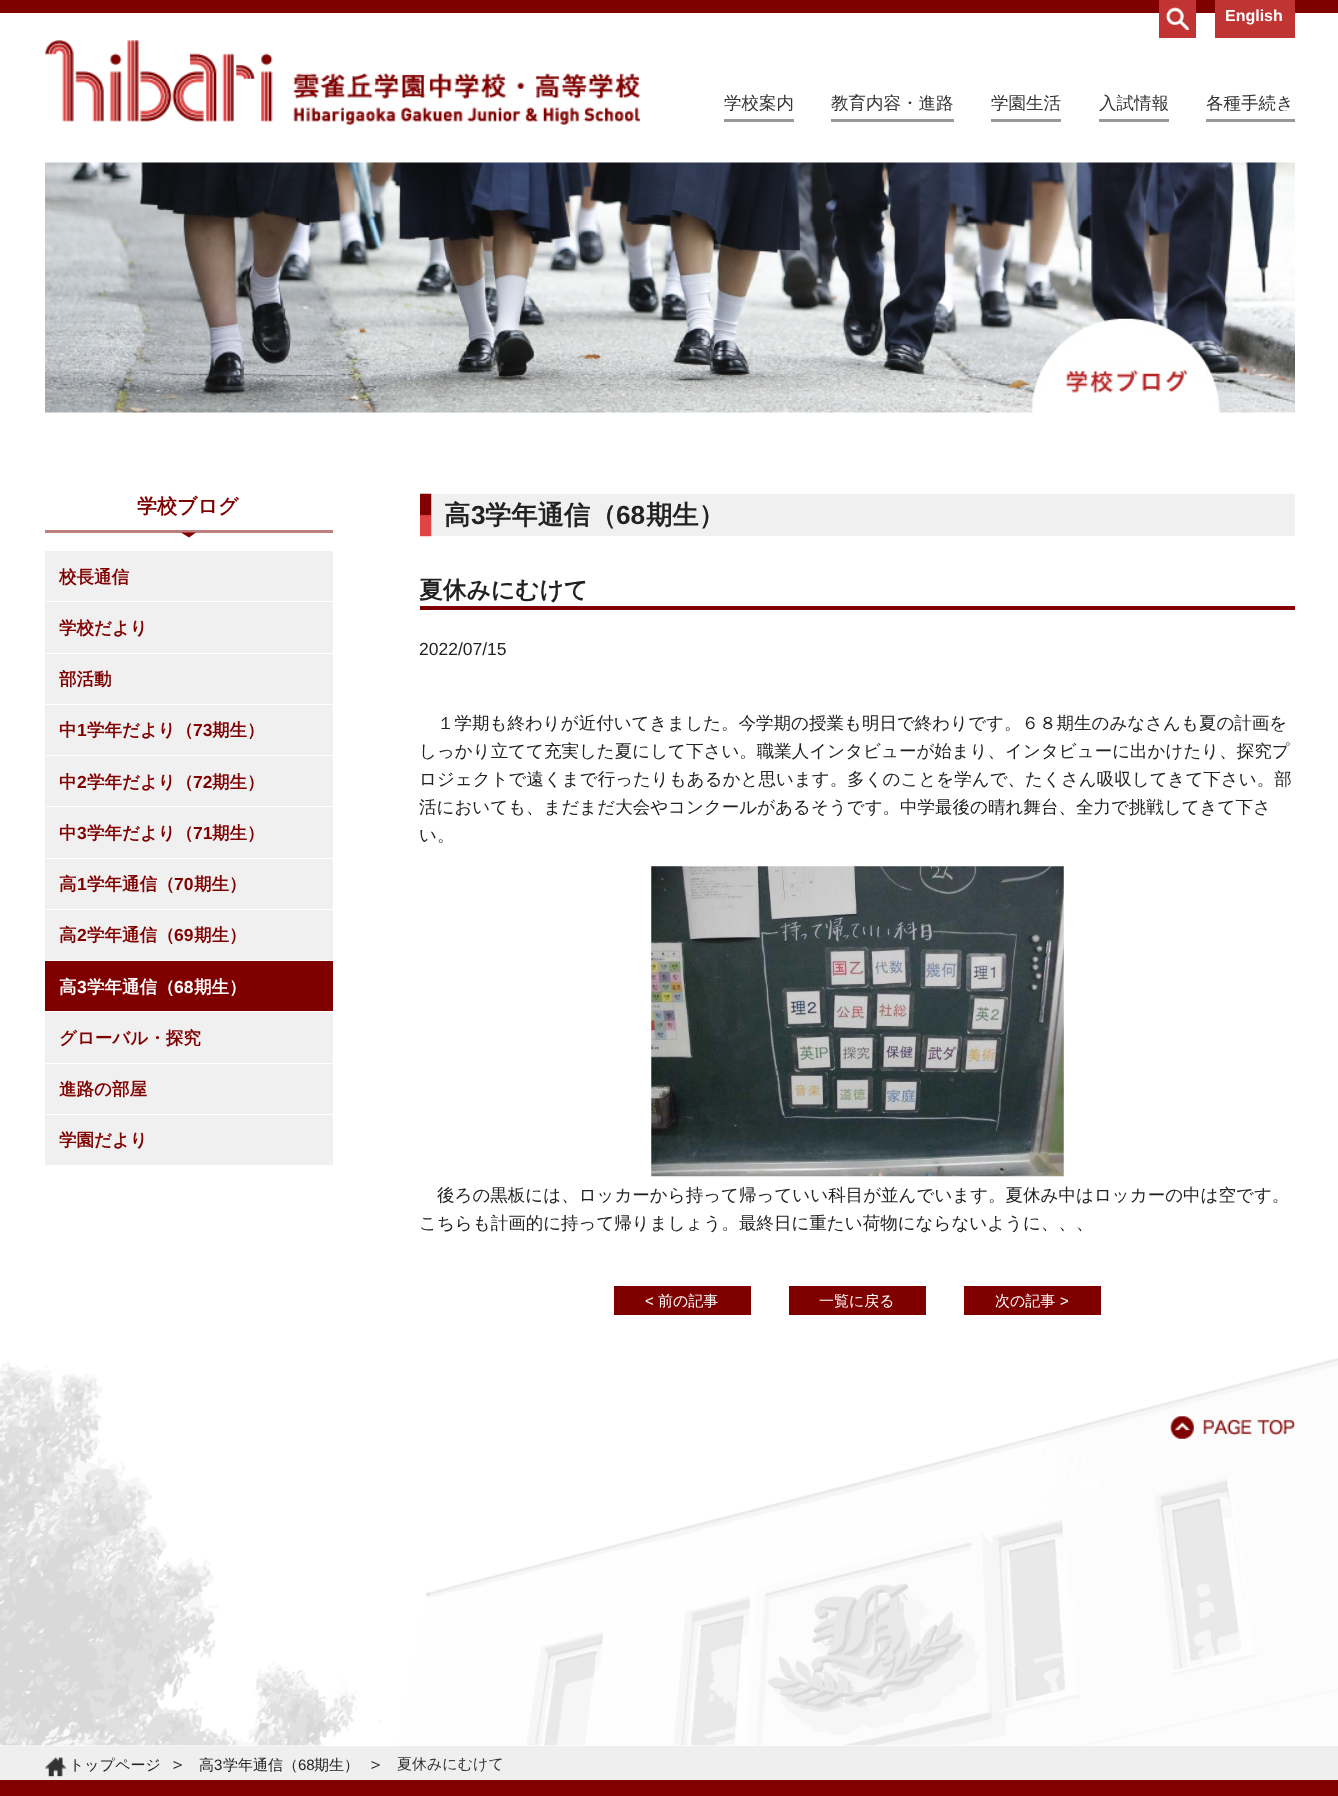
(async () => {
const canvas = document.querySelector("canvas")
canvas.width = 1338
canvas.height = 1796
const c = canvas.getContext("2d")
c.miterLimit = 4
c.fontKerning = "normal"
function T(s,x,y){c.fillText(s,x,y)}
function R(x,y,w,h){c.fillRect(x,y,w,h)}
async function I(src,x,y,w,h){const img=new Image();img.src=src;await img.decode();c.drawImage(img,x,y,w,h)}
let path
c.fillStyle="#fff"
R(0,0,1338,1796)
c.fillStyle="#800000"
R(0,0,1338,13)
c.fillStyle="#c23433"
R(1159,0,37,38)
await I("1.png",1166,7,23,23)
c.fillStyle="#c13434"
R(1215,0,80,38)
c.font="bold 16px Liberation Sans"
c.fillStyle="#fff"
T("English",1225,21)
await I("2.png",45,40,595,85)
c.save()
c.beginPath()
c.rect(724,94,70,17)
c.clip()
c.font="500 17.5px WenQuanYi Zen Hei"
c.fillStyle="#333"
T("学校案内",724,109)
c.restore()
c.fillStyle="#989898"
R(724,119,70,3)
c.save()
c.beginPath()
c.rect(831,94,123,17)
c.clip()
c.font="500 17.5px WenQuanYi Zen Hei"
c.fillStyle="#333"
T("教育内容・進路",831,109)
c.restore()
R(831,119,123,3)
c.save()
c.beginPath()
c.rect(991,94,70,17)
c.clip()
c.font="500 17.5px WenQuanYi Zen Hei"
c.fillStyle="#333"
T("学園生活",991,109)
c.restore()
R(991,119,70,3)
c.save()
c.beginPath()
c.rect(1099,94,70,17)
c.clip()
c.font="500 17.5px WenQuanYi Zen Hei"
c.fillStyle="#333"
T("入試情報",1099,109)
c.restore()
R(1099,119,70,3)
c.save()
c.beginPath()
c.rect(1206,94,89,17)
c.clip()
c.font="500 17.5px WenQuanYi Zen Hei"
c.fillStyle="#333"
T("各種手続き",1206,109)
c.restore()
R(1206,119,89,3)
await I("3.png",0,1358,1338,388)
await I("4.png",45,162,1250,251)
c.font="bold 20px WenQuanYi Zen Hei"
c.fillStyle="#800000"
T("学校ブログ",137,513)
c.fillStyle="#bf7f7f"
R(45,530,288,3)
c.fillStyle="#820000"
path = new Path2D("M181 532.5h15l-7 5z")
c.fill(path)
c.fillStyle="#f0f0f0"
R(45,551,288,614)
c.font="bold 17.5px WenQuanYi Zen Hei"
c.fillStyle="#800000"
T("校長通信",59,583)
c.fillStyle="#fff"
R(45,601,288,1)
c.fillStyle="#800000"
T("学校だより",59,634)
c.fillStyle="#fff"
R(45,653,288,1)
c.fillStyle="#800000"
T("部活動",59,685)
c.fillStyle="#fff"
R(45,704,288,1)
c.fillStyle="#800000"
T("中",59,736)
c.font="bold 17.5px Liberation Sans"
T("1",77,736)
c.font="bold 17.5px WenQuanYi Zen Hei"
T("学年だより（",87,736)
c.font="bold 17.5px Liberation Sans"
T("73",193,736)
c.font="bold 17.5px WenQuanYi Zen Hei"
T("期生）",212,736)
c.fillStyle="#fff"
R(45,755,288,1)
c.fillStyle="#800000"
T("中",59,788)
c.font="bold 17.5px Liberation Sans"
T("2",77,788)
c.font="bold 17.5px WenQuanYi Zen Hei"
T("学年だより（",87,788)
c.font="bold 17.5px Liberation Sans"
T("72",193,788)
c.font="bold 17.5px WenQuanYi Zen Hei"
T("期生）",212,788)
c.fillStyle="#fff"
R(45,806,288,1)
c.fillStyle="#800000"
T("中",59,839)
c.font="bold 17.5px Liberation Sans"
T("3",77,839)
c.font="bold 17.5px WenQuanYi Zen Hei"
T("学年だより（",87,839)
c.font="bold 17.5px Liberation Sans"
T("71",193,839)
c.font="bold 17.5px WenQuanYi Zen Hei"
T("期生）",212,839)
c.fillStyle="#fff"
R(45,858,288,1)
c.fillStyle="#800000"
T("高",59,890)
c.font="bold 17.5px Liberation Sans"
T("1",77,890)
c.font="bold 17.5px WenQuanYi Zen Hei"
T("学年通信（",87,890)
c.font="bold 17.5px Liberation Sans"
T("70",174,890)
c.font="bold 17.5px WenQuanYi Zen Hei"
T("期生）",194,890)
c.fillStyle="#fff"
R(45,909,288,1)
c.fillStyle="#800000"
T("高",59,941)
c.font="bold 17.5px Liberation Sans"
T("2",77,941)
c.font="bold 17.5px WenQuanYi Zen Hei"
T("学年通信（",87,941)
c.font="bold 17.5px Liberation Sans"
T("69",174,941)
c.font="bold 17.5px WenQuanYi Zen Hei"
T("期生）",194,941)
c.fillStyle="#fff"
R(45,960,288,1)
c.fillStyle="#800000"
R(45,961,288,50)
c.fillStyle="#fff"
T("高",59,993)
c.font="bold 17.5px Liberation Sans"
T("3",77,993)
c.font="bold 17.5px WenQuanYi Zen Hei"
T("学年通信（",87,993)
c.font="bold 17.5px Liberation Sans"
T("68",174,993)
c.font="bold 17.5px WenQuanYi Zen Hei"
T("期生）",194,993)
R(45,1011,288,1)
c.fillStyle="#800000"
T("グローバル・探究",59,1044)
c.fillStyle="#fff"
R(45,1063,288,1)
c.fillStyle="#800000"
T("進路の部屋",59,1095)
c.fillStyle="#fff"
R(45,1114,288,1)
c.fillStyle="#800000"
T("学園だより",59,1146)
c.fillStyle="#f0f0f0"
R(431,494,864,42)
await I("5.png",420,493,12,44)
c.font="bold 26.25px WenQuanYi Zen Hei"
c.fillStyle="#222"
T("高",444,524)
c.font="bold 26.25px Liberation Sans"
T("3",471,524)
c.font="bold 26.25px WenQuanYi Zen Hei"
T("学年通信（",485,524)
c.font="bold 26.25px Liberation Sans"
T("68",616,524)
c.font="bold 26.25px WenQuanYi Zen Hei"
T("期生）",646,524)
c.font="bold 23.75px WenQuanYi Zen Hei"
T("夏休みにむけて",419,598)
c.fillStyle="#800000"
R(420,606,875,4)
c.font="17.5px Liberation Sans"
c.fillStyle="#222"
T("2022/07/15",419,655)
c.font="500 17.5px WenQuanYi Zen Hei"
T("１学期も終わりが近付いてきました。今学期の授業も明日で終わりです。６８期生のみなさんも夏の計画を",437,729)
T("しっかり立てて充実した夏にして下さい。職業人インタビューが始まり、インタビューに出かけたり、探究プ",419,757)
T("ロジェクトで遠くまで行ったりもあるかと思います。多くのことを学んで、たくさん吸収してきて下さい。部",419,785)
T("活においても、まだまだ大会やコンクールがあるそうです。中学最後の晴れ舞台、全力で挑戦してきて下さ",419,813)
T("い。",419,841)
await I("6.png",651,866,413,311)
T("後ろの黒板には、ロッカーから持って帰っていい科目が並んでいます。夏休み中はロッカーの中は空です。",437,1201)
T("こちらも計画的に持って帰りましょう。最終日に重たい荷物にならないように、、、",419,1229)
c.fillStyle="#800000"
R(614,1286,137,29)
c.font="15px Liberation Sans"
c.fillStyle="#fff"
T("<",645,1306)
c.font="500 15px WenQuanYi Zen Hei"
T("前の記事",658,1306)
c.fillStyle="#800000"
R(789,1286,137,29)
c.fillStyle="#fff"
T("一覧に戻る",819,1306)
c.fillStyle="#800000"
R(964,1286,137,29)
c.fillStyle="#fff"
T("次の記事",995,1306)
c.font="15px Liberation Sans"
T(">",1060,1306)
await I("7.png",1170,1416,125,23)
c.fillStyle="#efefef"
R(0,1746,1338,34)
await I("8.png",45,1757,22,20)
c.font="500 15px WenQuanYi Zen Hei"
c.fillStyle="#222"
T("トップページ",69,1770)
c.font="500 17.5px WenQuanYi Zen Hei"
T("＞",169,1770)
c.font="500 15px WenQuanYi Zen Hei"
T("高",199,1770)
c.font="15px Liberation Sans"
T("3",214,1770)
c.font="500 15px WenQuanYi Zen Hei"
T("学年通信（",223,1770)
c.font="15px Liberation Sans"
T("68",298,1770)
c.font="500 15px WenQuanYi Zen Hei"
T("期生）",314,1770)
c.font="500 17.5px WenQuanYi Zen Hei"
T("＞",367,1770)
c.font="500 15px WenQuanYi Zen Hei"
c.fillStyle="#333"
T("夏休みにむけて",397,1769)
c.fillStyle="#820000"
R(0,1780,1338,16)
})()
